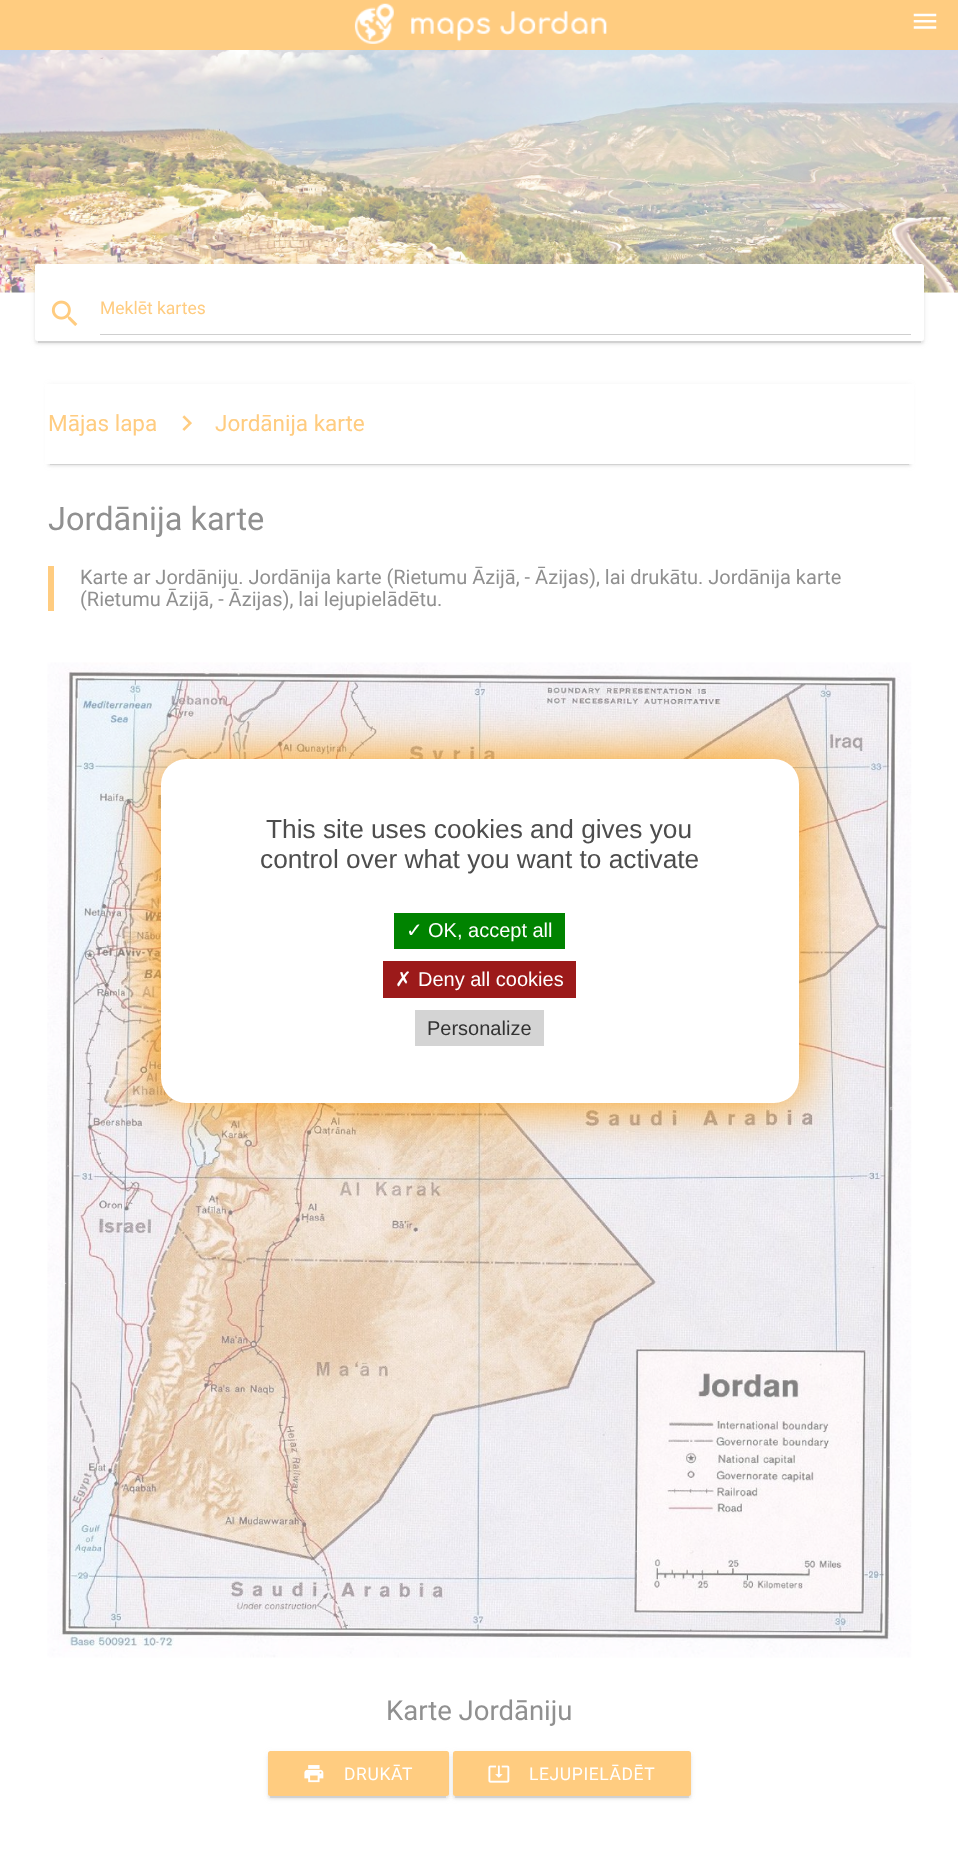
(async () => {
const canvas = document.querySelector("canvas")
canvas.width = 958
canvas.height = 1861
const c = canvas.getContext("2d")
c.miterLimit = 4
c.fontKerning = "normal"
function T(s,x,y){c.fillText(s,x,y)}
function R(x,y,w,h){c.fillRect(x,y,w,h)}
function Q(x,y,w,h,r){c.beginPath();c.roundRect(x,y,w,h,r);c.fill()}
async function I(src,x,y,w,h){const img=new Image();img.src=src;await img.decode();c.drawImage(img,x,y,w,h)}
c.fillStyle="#fff"
R(0,0,958,1861)
c.fillStyle="#ffcc80"
R(0,0,958,50)
await I("1.png",354,3,253,41)
await I("2.png",913,13,24,16)
await I("3.png",0,50,958,243)
c.fillStyle="#80808033"
c.filter="blur(0.5px)"
c.beginPath()
c.rect(38,270,883,73)
c.fill()
c.filter="none"
c.fillStyle="#8080801f"
c.filter="blur(3px)"
c.beginPath()
c.roundRect(35,265,889,78,2.5)
c.fill()
c.filter="none"
c.fillStyle="#80808024"
c.filter="blur(1px)"
c.beginPath()
c.roundRect(35,266,889,78,2.5)
c.fill()
c.filter="none"
c.fillStyle="#fff"
Q(35,264,889,77,2.5)
await I("4.png",51,300,27,26)
c.font="17.5px Roboto"
c.fillStyle="#ffcc80"
T("Meklēt kartes",100,314)
c.fillStyle="#cfcfcf"
R(100,334,811,1)
c.fillStyle="#80808033"
c.filter="blur(0.5px)"
c.beginPath()
c.rect(50,390,859,75)
c.fill()
c.filter="none"
c.fillStyle="#8080801f"
c.filter="blur(3px)"
c.beginPath()
c.rect(48,385,863,80)
c.fill()
c.filter="none"
c.fillStyle="#80808024"
c.filter="blur(1px)"
c.beginPath()
c.rect(48,386,863,80)
c.fill()
c.filter="none"
c.fillStyle="#fff"
R(45,384,869,80)
c.font="22.5px Roboto"
c.fillStyle="#ffcc80"
T("Mājas lapa",48,431)
await I("5.png",182,415,10,16)
T("Jordānija karte",215,431)
c.font="32.5px Roboto"
c.fillStyle="#909090"
T("Jordānija karte",48,530)
c.fillStyle="#ffcc80"
R(48,566,6,45)
c.font="20px Roboto"
c.fillStyle="#909090"
T("Karte ar Jordāniju. Jordānija karte (Rietumu Āzijā, - Āzijas), lai drukātu. Jordānija karte",80,584)
T("(Rietumu Āzijā, - Āzijas), lai lejupielādētu.",80,606)
await I("6.png",47,662,865,996)
c.font="27.5px Roboto"
T("Karte Jordāniju",386,1720)
c.fillStyle="#80808033"
c.filter="blur(0.5px)"
c.beginPath()
c.rect(270,1758,176,40)
c.fill()
c.filter="none"
c.fillStyle="#8080801f"
c.filter="blur(3px)"
c.beginPath()
c.roundRect(268,1753,181,45,2.5)
c.fill()
c.filter="none"
c.fillStyle="#80808024"
c.filter="blur(1px)"
c.beginPath()
c.roundRect(268,1754,181,45,2.5)
c.fill()
c.filter="none"
c.fillStyle="#ffcc80"
Q(268,1751,181,45,2.5)
await I("7.png",304,1765,20,18)
c.letterSpacing="0.6px"
c.font="17.5px Roboto"
c.fillStyle="#fff"
T("DRUKĀT",344,1780)
c.fillStyle="#80808033"
c.filter="blur(0.5px)"
c.beginPath()
c.rect(455,1758,234,40)
c.fill()
c.filter="none"
c.fillStyle="#8080801f"
c.filter="blur(3px)"
c.beginPath()
c.roundRect(453,1753,238,45,2.5)
c.fill()
c.filter="none"
c.fillStyle="#80808024"
c.filter="blur(1px)"
c.beginPath()
c.roundRect(453,1754,238,45,2.5)
c.fill()
c.filter="none"
c.fillStyle="#ffcc80"
Q(453,1751,238,45,2.5)
await I("8.png",488,1765,22,18)
c.fillStyle="#fff"
T("LEJUPIELĀDĒT",529,1780)
c.fillStyle="#ff9800"
c.filter="blur(25px)"
c.beginPath()
c.roundRect(161,759,638,344,25)
c.fill()
c.filter="none"
c.fillStyle="#fff"
Q(161,759,638,344,25)
c.letterSpacing="0px"
c.font="26.25px Liberation Sans"
c.fillStyle="#4d4d4d"
T("This site uses cookies and gives you",266,838)
T("control over what you want to activate",260,868)
c.fillStyle="#008300"
R(394,913,171,36)
c.font="20px DejaVu Sans"
c.fillStyle="#fff"
T("✓",406,937)
c.font="20px Liberation Sans"
T("OK, accept all",428,937)
c.fillStyle="#9c1a1a"
R(383,961,193,37)
c.font="20px DejaVu Sans"
c.fillStyle="#fff"
T("✗",395,986)
c.font="20px Liberation Sans"
T("Deny all cookies",418,986)
c.fillStyle="#d4d4d4"
R(415,1010,129,36)
c.fillStyle="#333"
T("Personalize",427,1035)
})()
